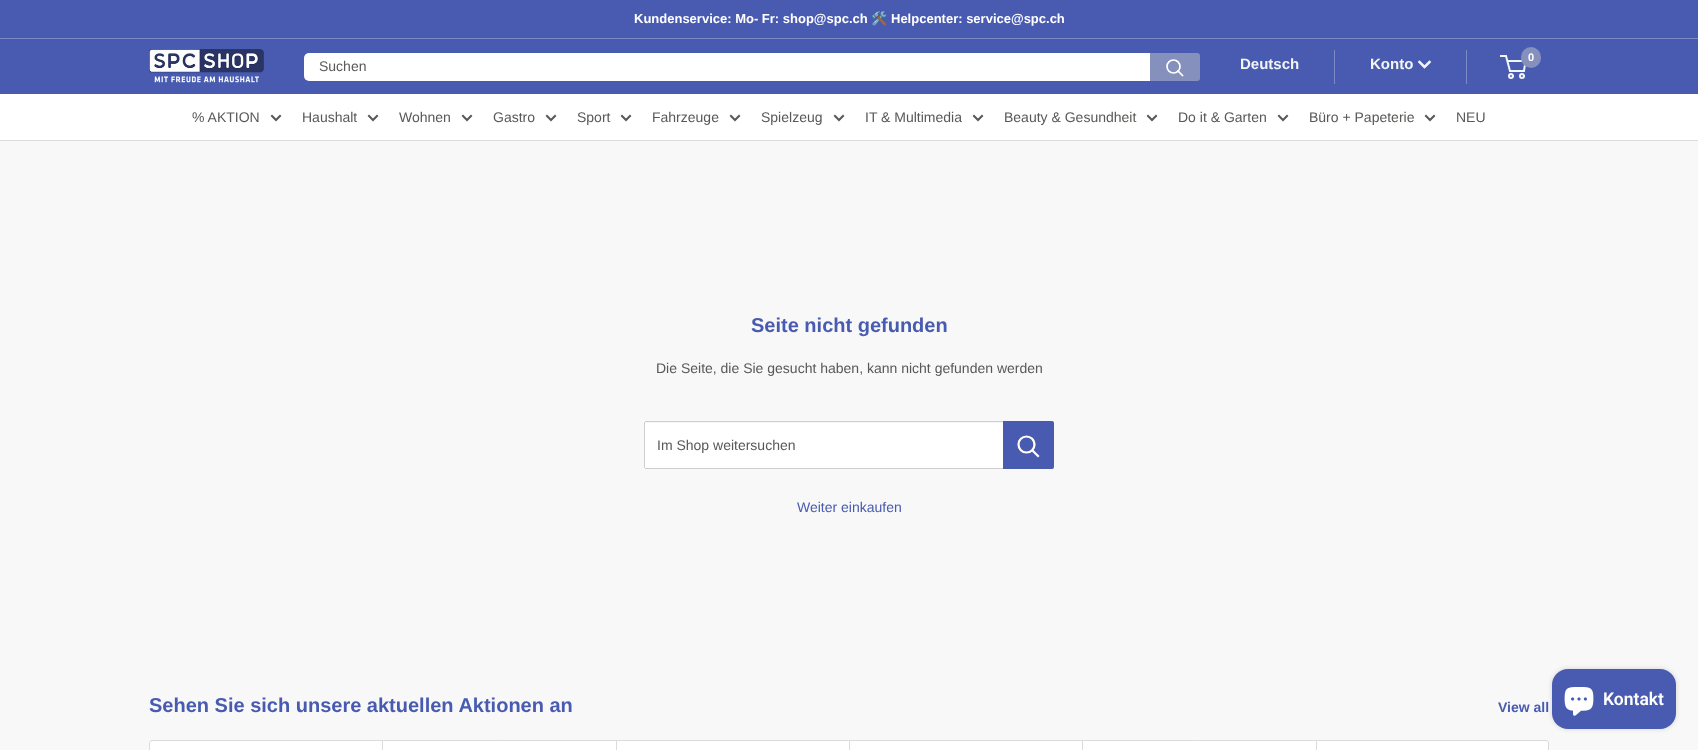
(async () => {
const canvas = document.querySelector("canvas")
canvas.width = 1698
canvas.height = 750
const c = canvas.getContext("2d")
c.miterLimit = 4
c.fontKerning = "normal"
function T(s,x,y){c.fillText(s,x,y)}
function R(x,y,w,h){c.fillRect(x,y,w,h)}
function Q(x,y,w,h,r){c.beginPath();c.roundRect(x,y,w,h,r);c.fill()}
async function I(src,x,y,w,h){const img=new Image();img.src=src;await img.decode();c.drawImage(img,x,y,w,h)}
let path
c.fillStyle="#f8f8f8"
R(0,0,1698,750)
c.fillStyle="#485bb0"
R(0,0,1698,38)
c.fillStyle="#7b89c5"
R(0,38,1698,1)
c.font="bold 13px Liberation Sans"
c.fillStyle="#fff"
T("Kundenservice: Mo- Fr: shop@spc.ch",634,23)
c.font="bold 13px Noto Color Emoji"
T("🛠️",871,23)
c.font="bold 13px Liberation Sans"
T("Helpcenter: service@spc.ch",891,23)
c.fillStyle="#485bb0"
R(0,39,1698,55)
await I("1.png",149,49,115,34)
c.fillStyle="#fff"
Q(304,53,896,28,5)
c.font="14px Liberation Sans"
c.fillStyle="#585856"
T("Suchen",319,71)
c.fillStyle="#8690bd"
c.beginPath()
c.roundRect(1150,53,50,28,[0,3,3,0])
c.fill()
path = new Path2D("M1182.5 75.5l-4.5-4.5")
c.strokeStyle="#fff"
c.lineWidth=1.7
c.lineCap="square"
c.stroke(path)
c.beginPath()
c.arc(1173.5,66.5,6.5,0,7)
c.stroke()
c.font="bold 15px Liberation Sans"
c.fillStyle="#f2f4f6"
T("Deutsch",1240,69)
c.fillStyle="#7b89c5"
R(1334,50,1,34)
c.fillStyle="#f2f4f6"
T("Konto",1370,69)
path = new Path2D("M1429.5 62l-5 5l-5-5")
c.strokeStyle="#f2f4f6"
c.lineWidth=2.5
c.stroke(path)
c.fillStyle="#7b89c5"
R(1466,50,1,34)
c.beginPath()
c.arc(1511,76,2,0,7)
c.lineWidth=2
c.stroke()
c.beginPath()
c.arc(1522,76,2,0,7)
c.stroke()
path = new Path2D("M1507.5 61h18l-1.5 10h-14l-4-15h-6")
c.lineCap="butt"
c.stroke(path)
c.fillStyle="#8690bd"
Q(1521,47,20,21,10)
c.font="bold 11px Liberation Sans"
c.fillStyle="#fff"
T("0",1528,61)
R(0,94,1698,46)
c.fillStyle="#dbdbdb"
R(0,140,1698,1)
c.font="14px Liberation Sans"
c.fillStyle="#585856"
T("% AKTION",192,122)
path = new Path2D("M280 116l-4 4l-4-4")
c.strokeStyle="#585856"
c.lineCap="square"
c.stroke(path)
T("Haushalt",302,122)
path = new Path2D("M377 116l-4 4l-4-4")
c.stroke(path)
T("Wohnen",399,122)
path = new Path2D("M471 116l-4 4l-4-4")
c.stroke(path)
T("Gastro",493,122)
path = new Path2D("M555 116l-4 4l-4-4")
c.stroke(path)
T("Sport",577,122)
path = new Path2D("M630 116l-4 4l-4-4")
c.stroke(path)
T("Fahrzeuge",652,122)
path = new Path2D("M739 116l-4 4l-4-4")
c.stroke(path)
T("Spielzeug",761,122)
path = new Path2D("M843 116l-4 4l-4-4")
c.stroke(path)
T("IT & Multimedia",865,122)
path = new Path2D("M982 116l-4 4l-4-4")
c.stroke(path)
T("Beauty & Gesundheit",1004,122)
path = new Path2D("M1156 116l-4 4l-4-4")
c.stroke(path)
T("Do it & Garten",1178,122)
path = new Path2D("M1287 116l-4 4l-4-4")
c.stroke(path)
T("Büro + Papeterie",1309,122)
path = new Path2D("M1434 116l-4 4l-4-4")
c.stroke(path)
T("NEU",1456,122)
c.font="bold 20px Liberation Sans"
c.fillStyle="#485bb0"
T("Seite nicht gefunden",751,332)
c.font="14px Liberation Sans"
c.fillStyle="#585856"
T("Die Seite, die Sie gesucht haben, kann nicht gefunden werden",656,373)
c.fillStyle="#fff"
c.beginPath()
c.roundRect(644,421,359,48,[2,0,0,2])
c.fill()
c.fillStyle="#f6f6f6"
path = new Path2D("M646 423h357v-1h-357c-1 0-1 1-1 2c0-1 0-1 1-1z")
c.fill(path)
c.fillStyle="#cecece"
R(645,421,358,1)
R(645,468,358,1)
R(644,422,1,46)
c.fillStyle="#585856"
T("Im Shop weitersuchen",657,450)
c.fillStyle="#485bb0"
c.beginPath()
c.roundRect(1003,421,51,48,[0,2,2,0])
c.fill()
path = new Path2D("M1038 456l-5.5-5.5")
c.strokeStyle="#fff"
c.lineWidth=2.2
c.stroke(path)
c.beginPath()
c.arc(1026.5,444.5,8,0,7)
c.stroke()
T("Weiter einkaufen",797,512)
c.font="bold 20px Liberation Sans"
T("Sehen Sie sich unsere aktuellen Aktionen an",149,712)
c.font="bold 14px Liberation Sans"
T("View all",1498,712)
c.fillStyle="#fff"
Q(149,740,1400,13,3)
c.fillStyle="#dbdbdb"
R(382,740,1,10)
R(616,740,1,10)
R(849,740,1,10)
R(1082,740,1,10)
R(1316,740,1,10)
c.beginPath()
c.roundRect(149.5,740.5,1399,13,2.5)
c.strokeStyle="#dbdbdb"
c.lineWidth=1
c.stroke()
c.fillStyle="#00000026"
c.filter="blur(2.5px)"
c.beginPath()
c.roundRect(1552,669,124,60,16)
c.fill()
c.filter="none"
c.fillStyle="#485bb0"
Q(1552,669,124,60,16)
await I("2.png",1564,687,30,29)
c.font="600 17.5px Roboto"
c.fillStyle="#fff"
T("Kontakt",1603,705)
})()
